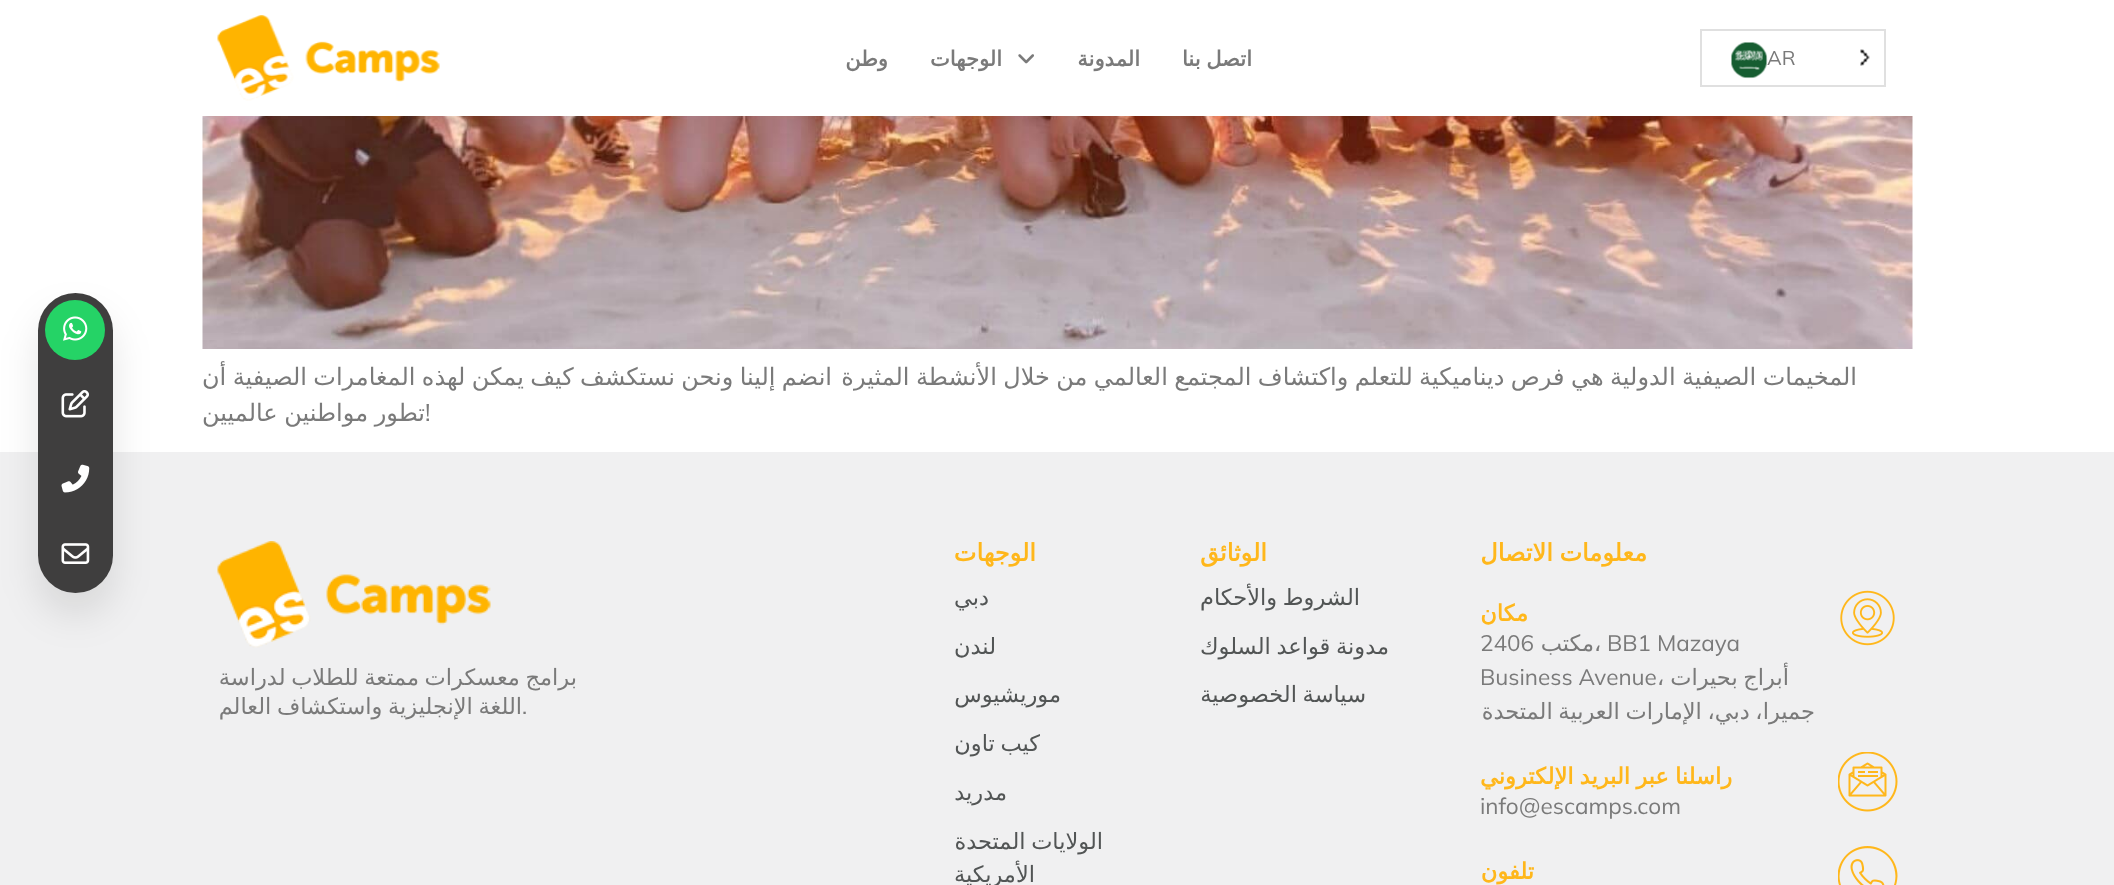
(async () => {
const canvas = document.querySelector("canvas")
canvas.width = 2114
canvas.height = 885
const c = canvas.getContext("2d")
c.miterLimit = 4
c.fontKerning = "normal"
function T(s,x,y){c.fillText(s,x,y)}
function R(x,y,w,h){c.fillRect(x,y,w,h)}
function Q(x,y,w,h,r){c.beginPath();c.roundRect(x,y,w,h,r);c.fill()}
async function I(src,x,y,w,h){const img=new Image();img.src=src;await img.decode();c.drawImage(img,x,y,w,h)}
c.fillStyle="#fff"
R(0,0,2114,885)
c.strokeStyle="#e0e0e0"
c.lineWidth=2
c.strokeRect(1701,30,184,56)
await I("1.png",1860,49,10,17)
c.font="20px Mulish"
c.fillStyle="#7a7a7a"
T("AR",1767,65)
await I("2.png",1731,42,37,37)
c.fillStyle="#f0f0f1"
R(0,452,2114,433)
c.fillStyle="#0000001a"
c.filter="blur(19px)"
c.beginPath()
c.roundRect(38,315,75,300,37.5)
c.fill()
c.filter="none"
c.fillStyle="#3f3e3e"
Q(38,293,75,300,37.5)
c.fillStyle="#25d366"
c.beginPath()
c.arc(75,330,30,0,7)
c.fill()
await I("3.png",63,316,25,25)
await I("4.png",61,390,28,28)
await I("5.png",61,464,29,29)
await I("6.png",61,543,29,21)
c.wordSpacing="-1px"
c.direction="rtl"
c.font="bold 21px DejaVu Sans"
c.fillStyle="#7a7a7a"
T("اتصل بنا",1252,66)
c.wordSpacing="0px"
T("المدونة",1140,66)
await I("7.png",1018,54,16,10)
T("الوجهات",1002,66)
T("وطن",888,66)
await I("8.png",217,15,223,86)
await I("9.png",202,116,1711,233)
c.wordSpacing="-1.25px"
c.font="24px DejaVu Sans"
T("المخيمات الصيفية الدولية هي فرص ديناميكية للتعلم واكتشاف المجتمع العالمي من خلال الأنشطة المثيرة",1857,385)
T("انضم إلينا ونحن نستكشف كيف يمكن لهذه المغامرات الصيفية أن",832,385)
c.wordSpacing="-1px"
T("تطور مواطنين عالميين",425,421)
c.wordSpacing="0px"
c.direction="ltr"
c.font="24px Mulish"
T("!",425,421)
c.wordSpacing="-1px"
c.direction="rtl"
c.font="bold 24px DejaVu Sans"
c.fillStyle="#ffb71b"
T("معلومات الاتصال",1647,561)
await I("10.png",1840,590,55,56)
c.wordSpacing="0px"
c.font="bold 22.5px DejaVu Sans"
T("مكان",1528,621)
c.direction="ltr"
c.font="22.5px Mulish"
c.fillStyle="#7a7a7a"
T("BB1 Mazaya",1607,651)
c.font="22.5px DejaVu Sans"
T("،",1594,651)
c.direction="rtl"
T("مكتب",1594,651)
c.direction="ltr"
c.font="22.5px Mulish"
T("2406",1480,651)
c.wordSpacing="-1.5px"
c.direction="rtl"
c.font="22.5px DejaVu Sans"
T("أبراج بحيرات",1789,685)
c.wordSpacing="0px"
c.direction="ltr"
T("،",1657,685)
c.font="22.5px Mulish"
T("Business Avenue",1480,685)
c.wordSpacing="-1.5px"
c.direction="rtl"
c.font="22.5px DejaVu Sans"
T("جميرا، دبي، الإمارات العربية المتحدة",1815,719)
await I("11.png",1838,752,60,60)
c.wordSpacing="-1px"
c.font="bold 22.5px DejaVu Sans"
c.fillStyle="#ffb71b"
T("راسلنا عبر البريد الإلكتروني",1732,784)
c.wordSpacing="0px"
c.direction="ltr"
c.font="22.5px Mulish"
c.fillStyle="#7a7a7a"
T("info@escamps.com",1480,814)
await I("12.png",1838,846,60,39)
c.direction="rtl"
c.font="bold 22.5px DejaVu Sans"
c.fillStyle="#ffb71b"
T("تلفون",1534,879)
c.font="bold 24px DejaVu Sans"
T("الوثائق",1267,561)
c.wordSpacing="-1.5px"
c.font="22.5px DejaVu Sans"
c.fillStyle="#525555"
T("الشروط والأحكام",1360,605)
T("مدونة قواعد السلوك",1389,654)
T("سياسة الخصوصية",1366,702)
c.wordSpacing="0px"
c.font="bold 24px DejaVu Sans"
c.fillStyle="#ffb71b"
T("الوجهات",1036,561)
c.font="22.5px DejaVu Sans"
c.fillStyle="#525555"
T("دبي",989,605)
T("لندن",996,654)
T("موريشيوس",1061,702)
c.wordSpacing="-1.5px"
T("كيب تاون",1040,751)
c.wordSpacing="0px"
T("مدريد",1007,800)
c.wordSpacing="-1.5px"
T("الولايات المتحدة",1103,849)
c.wordSpacing="0px"
T("الأمريكية",1035,882)
await I("13.png",217,541,274,107)
c.wordSpacing="-1.5px"
c.fillStyle="#7a7a7a"
T("برامج معسكرات ممتعة للطلاب لدراسة",577,685)
T("اللغة الإنجليزية واستكشاف العالم",522,714)
c.wordSpacing="0px"
c.direction="ltr"
c.font="22.5px Mulish"
T(".",522,714)
})()
